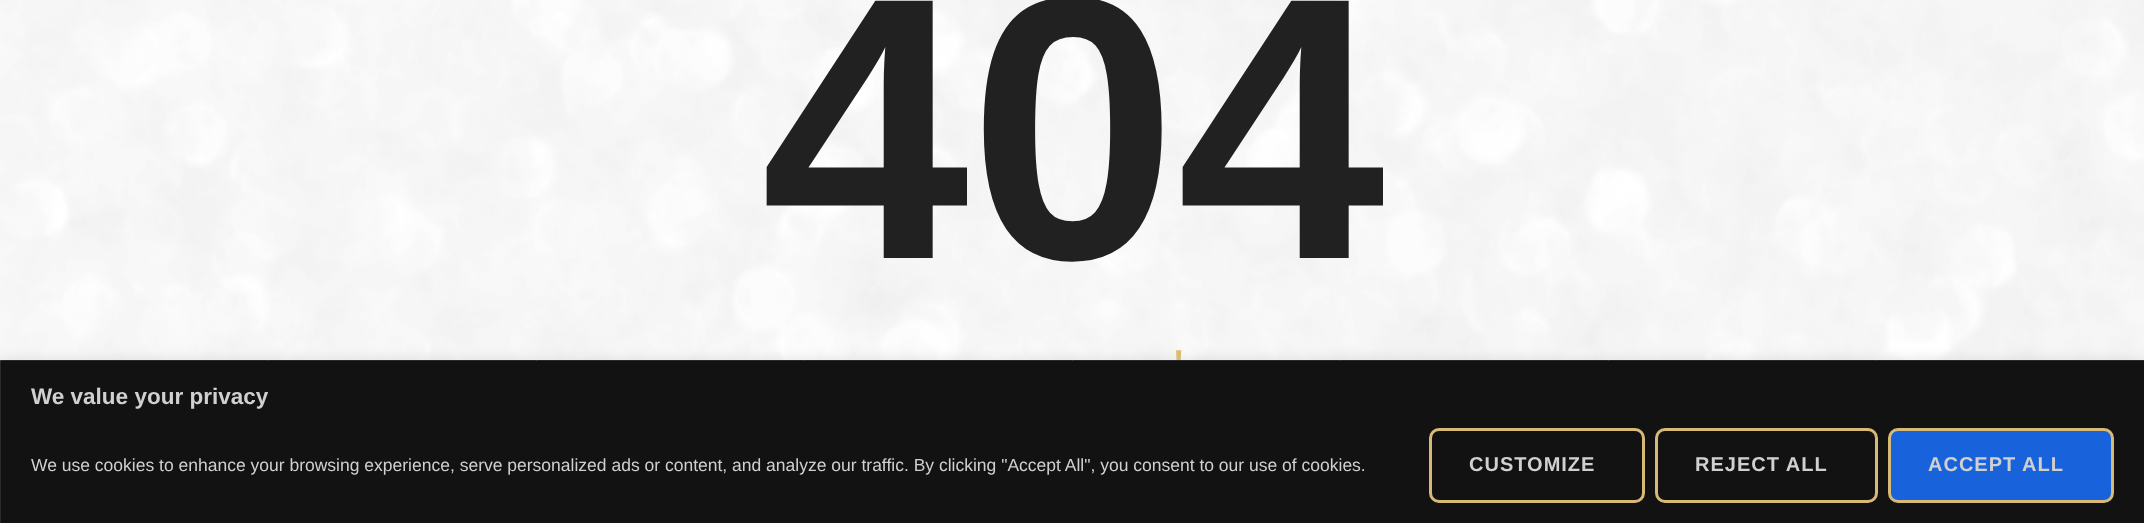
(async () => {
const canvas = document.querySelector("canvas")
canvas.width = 2144
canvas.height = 523
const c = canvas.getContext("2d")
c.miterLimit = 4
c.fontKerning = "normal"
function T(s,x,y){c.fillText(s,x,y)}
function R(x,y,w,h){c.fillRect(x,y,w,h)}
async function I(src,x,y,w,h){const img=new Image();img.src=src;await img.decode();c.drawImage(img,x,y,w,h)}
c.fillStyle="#fff"
R(0,0,2144,523)
await I("1.png",0,0,2144,360)
c.font="bold 374px Liberation Sans"
c.fillStyle="#212121"
T("404",761,258)
c.font="bold 39px Liberation Sans"
c.fillStyle="#debf67"
T("'",1174,377)
c.fillStyle="#acabab4d"
c.filter="blur(6px)"
c.beginPath()
c.rect(0,359,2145,164)
c.fill()
c.filter="none"
c.fillStyle="#121212"
c.beginPath()
c.rect(.5,360.5,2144,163)
c.fill()
c.strokeStyle="#2a2a2a"
c.stroke()
c.font="bold 22.5px Liberation Sans"
c.fillStyle="#d0d0d0"
T("We value your privacy",31,404)
c.font="17.5px Liberation Sans"
T("We use cookies to enhance your browsing experience, serve personalized ads or content, and analyze our traffic. By clicking \"Accept All\", you consent to our use of cookies.",31,471)
c.beginPath()
c.roundRect(1430.5,429.5,213,72,8.5)
c.strokeStyle="#d7ba75"
c.lineWidth=3
c.stroke()
c.letterSpacing="1px"
c.font="bold 20px Liberation Sans"
T("CUSTOMIZE",1469,471)
c.beginPath()
c.roundRect(1656.5,429.5,220,72,8.5)
c.stroke()
T("REJECT ALL",1695,471)
c.fillStyle="#1863dc"
c.beginPath()
c.roundRect(1889.5,429.5,223,72,8.5)
c.fill()
c.stroke()
c.fillStyle="#d0d0d0"
T("ACCEPT ALL",1928,471)
})()
